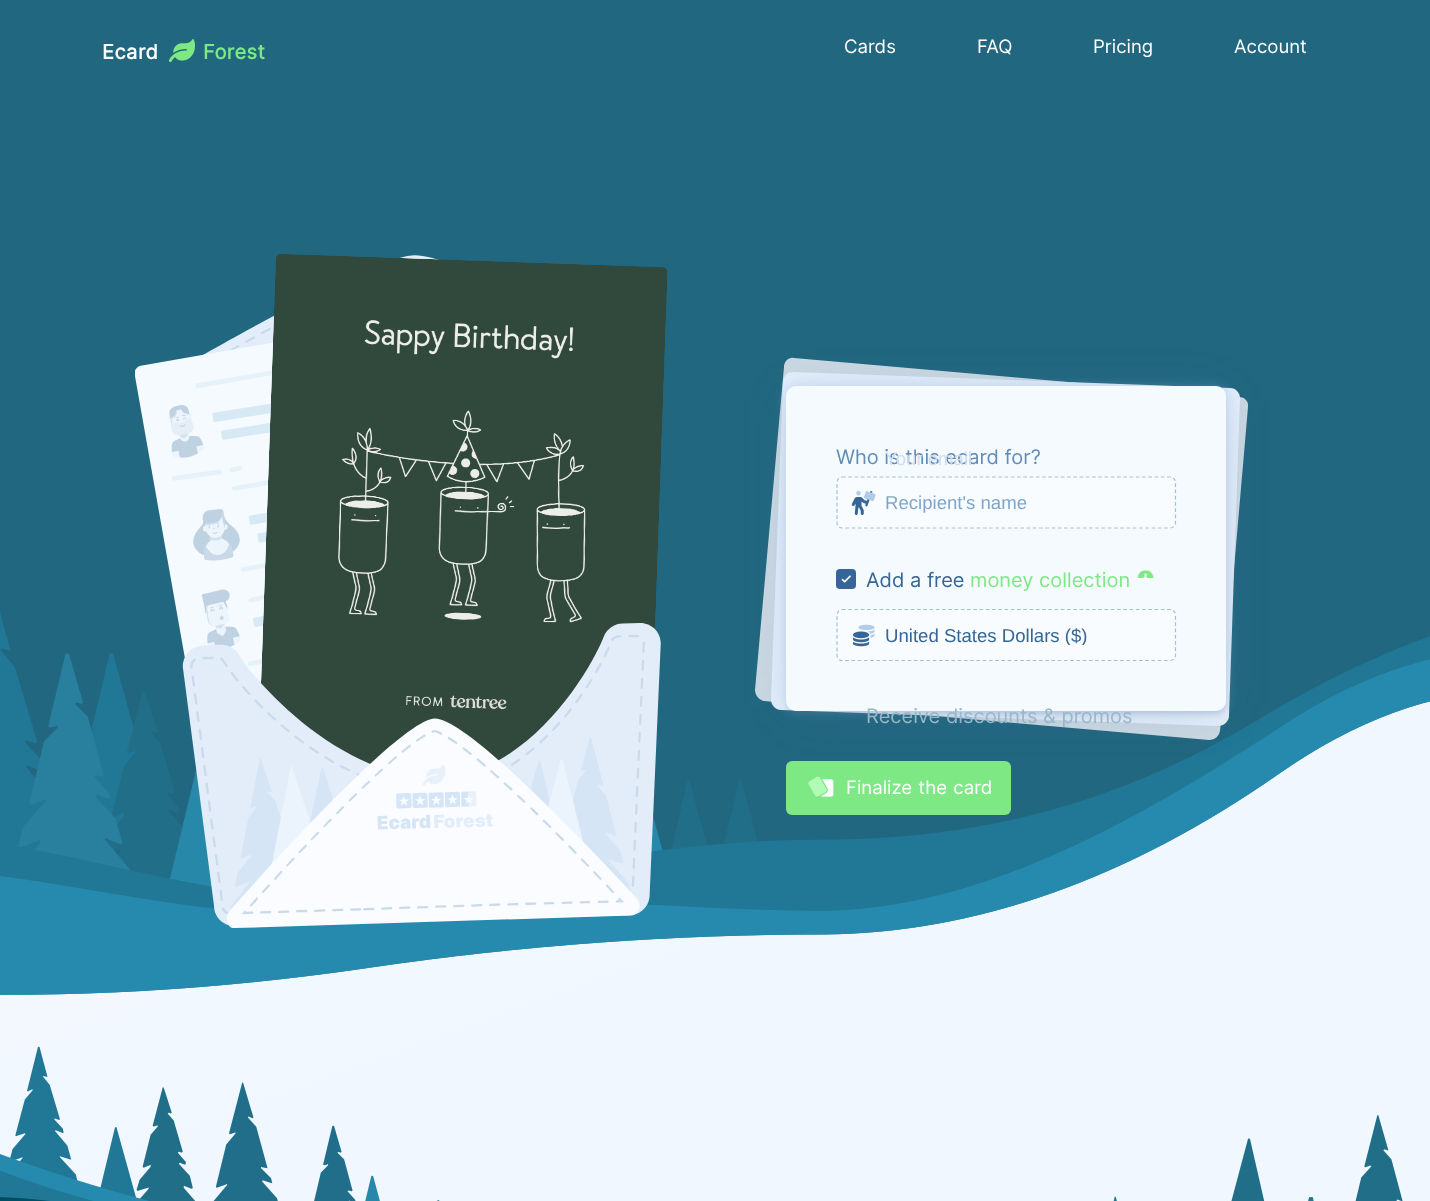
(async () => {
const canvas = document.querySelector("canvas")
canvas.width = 1430
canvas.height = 1201
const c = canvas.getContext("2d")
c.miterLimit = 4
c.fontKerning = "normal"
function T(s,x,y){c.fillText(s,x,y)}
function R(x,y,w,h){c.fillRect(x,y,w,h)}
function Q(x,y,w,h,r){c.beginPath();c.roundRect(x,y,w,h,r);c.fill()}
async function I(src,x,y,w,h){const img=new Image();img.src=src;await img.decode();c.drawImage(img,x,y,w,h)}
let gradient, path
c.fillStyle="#fff"
R(0,0,1430,1201)
gradient = c.createLinearGradient(438,-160,992,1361)
gradient.addColorStop(.3,"#fafcff")
gradient.addColorStop(.7,"#f0f7ff")
c.fillStyle = gradient
R(0,701,1430,500)
await I("1.png",0,0,1430,995)
c.letterSpacing="0.5px"
c.font="bold 20px Inter"
c.fillStyle="#fff"
T("Ecard",102,59)
await I("2.png",169,39,26,24)
c.fillStyle="#7de884"
T("Forest",203,59)
c.letterSpacing="0px"
c.font="18.6px Inter"
c.fillStyle="#fff"
T("Cards",844,53)
T("FAQ",977,53)
T("Pricing",1093,53)
T("Account",1234,53)
await I("4.png",135,255,304,428)
await I("3.png",261,254,407,510)
await I("5.png",182,623,479,305)
c.fillStyle="#c9d7e2"
path = new Path2D("M794 358l445 39c6 0 10 5 9 10l-28 324c-1 5-5 9-11 9l-445-39c-5-1-9-6-9-11l29-323c0-6 5-10 10-9z")
c.fill(path)
c.fillStyle="#e2edfa"
path = new Path2D("M793 372l437 16c6 0 10 5 10 10l-11 318c0 5-5 10-11 10l-437-16c-5 0-10-5-10-10l12-318c0-5 4-10 10-10z")
c.fill(path)
c.fillStyle="#364c6324"
c.filter="blur(2.5px)"
c.beginPath()
c.roundRect(789,394,435,320,8)
c.fill()
c.filter="none"
c.fillStyle="#4f709233"
c.filter="blur(25px)"
c.beginPath()
c.rect(796,401,420,305)
c.fill()
c.filter="none"
c.fillStyle="#8cb5de3d"
c.filter="blur(5px)"
c.beginPath()
c.roundRect(784,384,445,330,13)
c.fill()
c.filter="none"
c.fillStyle="#f5faff"
Q(786,386,440,325,10)
c.font="20px Inter"
c.fillStyle="#618cb8"
T("Who is this ecard for?",836,464)
c.fillStyle="#f8fcff"
Q(836,476,340,53,6)
path = new Path2D("M842 477h328c3 0 5.5 2.5 5.5 5v41c0 2.5-2.5 5-5.5 5h-328c-2.5 0-5-2.5-5-5v-41c0-2.5 2.5-5 5-5z")
c.strokeStyle="#9fbfdf"
c.lineWidth=1.2
c.setLineDash([3.75,2.5])
c.stroke(path)
await I("6.png",851,491,25,24)
c.font="18.6px Liberation Sans"
c.fillStyle="#7ea6cd"
T("Recipient's name",885,509)
c.fillStyle="#356697"
Q(836,569,20,20,4)
await I("7.png",841,575,10,8)
c.font="20px Inter"
T("Add a free",866,587)
c.fillStyle="#7de884"
T("money collection",970,587)
await I("8.png",1137,569,17,9)
c.fillStyle="#f8fcff"
Q(836,609,340,52,6)
path = new Path2D("M842 609.5h328c3 0 5.5 2.5 5.5 5.5v40c0 3-2.5 5.5-5.5 5.5h-328c-2.5 0-5-2.5-5-5.5v-40c0-3 2.5-5.5 5-5.5z")
c.stroke(path)
await I("9.png",852,624,23,23)
c.save()
c.beginPath()
c.rect(885,625,275,20)
c.clip()
c.font="18.6px Liberation Sans"
c.fillStyle="#356697"
T("United States Dollars ($)",885,642)
c.restore()
c.fillStyle="#7de884"
Q(786,761,225,54,6)
await I("10.png",808,776,26,21)
c.wordSpacing="1px"
c.font="18.6px Inter"
c.fillStyle="#fff"
T("Finalize the card",846,794)
c.wordSpacing="0px"
c.font="18.6px Liberation Sans"
c.fillStyle="#d0dfed"
T("Your email",885,465)
c.font="20px Inter"
c.fillStyle="#98b7ca"
T("Receive discounts & promos",866,723)
await I("11.png",0,1046,1403,155)
})()
